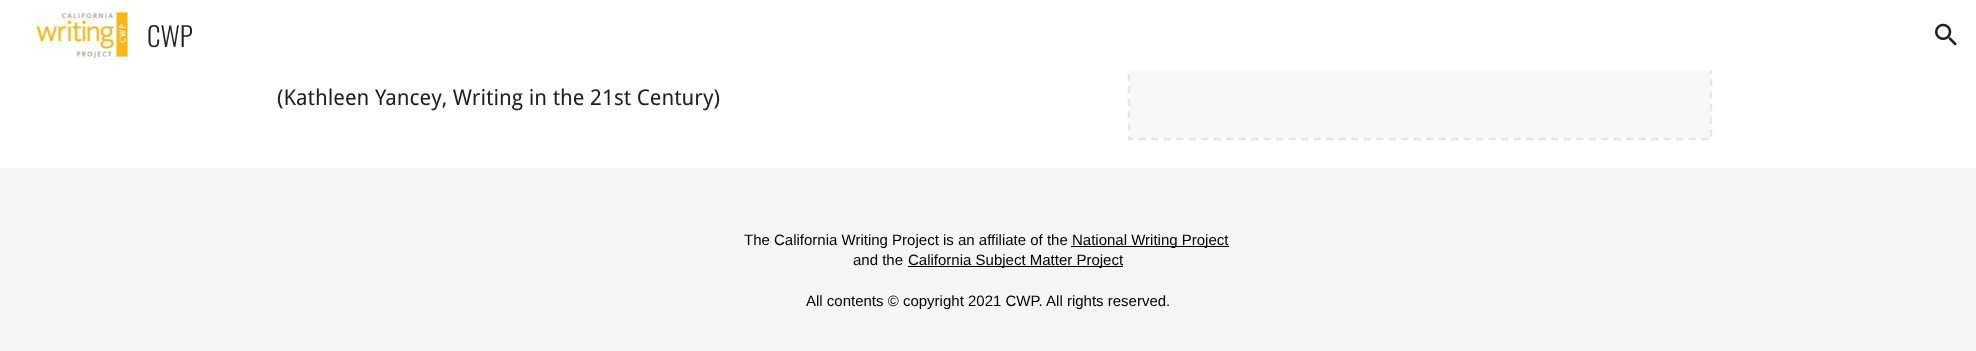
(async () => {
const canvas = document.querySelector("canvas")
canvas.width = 1976
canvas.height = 351
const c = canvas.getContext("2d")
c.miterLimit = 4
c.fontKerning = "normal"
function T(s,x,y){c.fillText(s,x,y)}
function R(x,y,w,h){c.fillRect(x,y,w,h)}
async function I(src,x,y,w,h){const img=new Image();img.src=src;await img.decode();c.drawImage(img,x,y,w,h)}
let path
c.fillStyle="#fff"
R(0,0,1976,351)
c.fillStyle="#f8f8f8"
R(1130,70,580,68)
path = new Path2D("M1129-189h582v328h-582z")
c.strokeStyle="#e6e6e6"
c.lineWidth=2.5
c.setLineDash([7.5,5])
c.stroke(path)
c.fillStyle="#fff"
R(1127,0,586,70)
await I("1.png",35,12,93,48)
c.font="300 27px Oswald"
c.fillStyle="#212121"
T("CWP",147,47)
await I("2.png",1935,23,22,23)
c.font="21.7px Droid Sans"
T("(Kathleen Yancey, Writing in the 21st Century)",277,105)
c.fillStyle="#f5f5f5"
R(0,168,1976,183)
c.font="15px Liberation Sans"
c.fillStyle="#000"
T("The California Writing Project is an affiliate of the",744,245)
R(1071,246,158,1)
T("National Writing Project",1072,245)
T("and the",853,265)
R(908,266,215,1)
T("California Subject Matter Project",908,265)
T("All contents © copyright 2021 CWP. All rights reserved.",806,306)
})()
